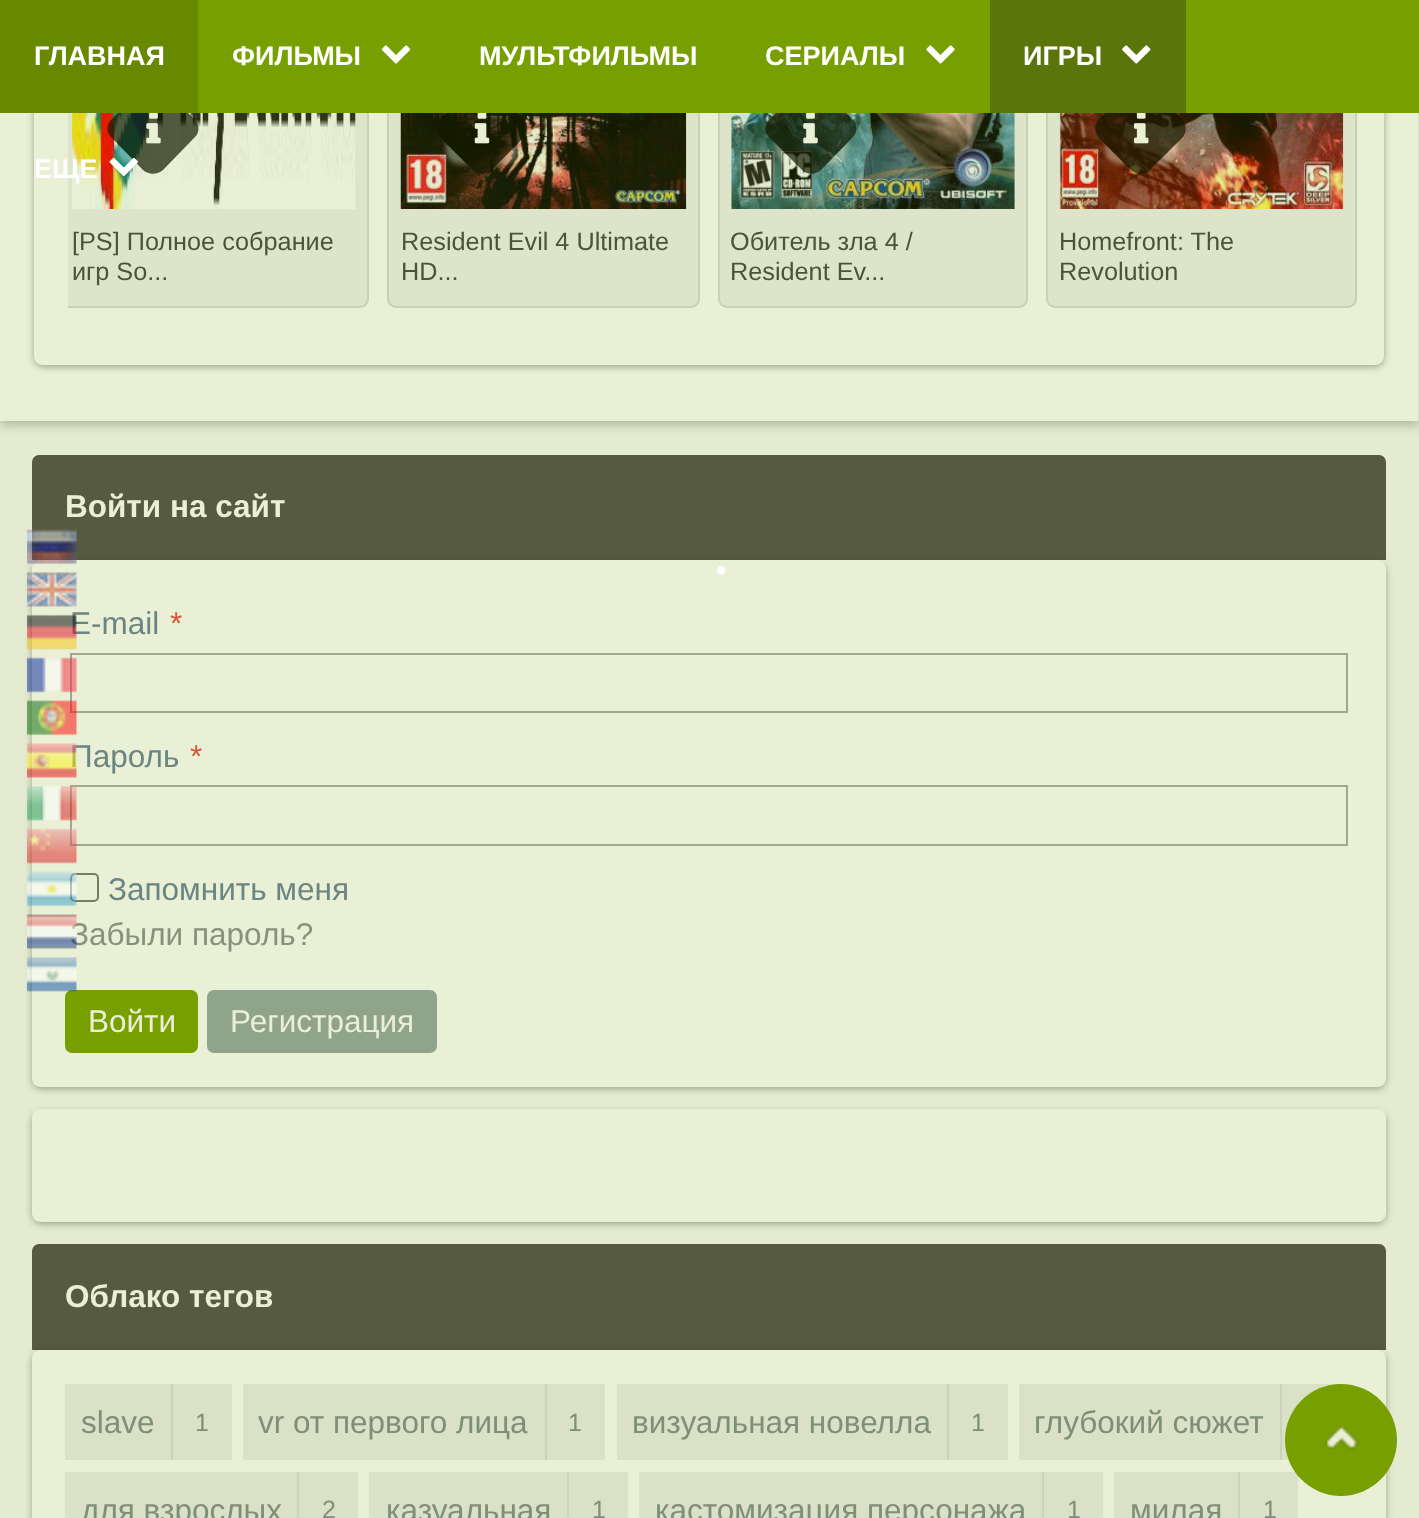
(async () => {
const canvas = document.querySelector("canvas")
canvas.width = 1419
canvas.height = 1518
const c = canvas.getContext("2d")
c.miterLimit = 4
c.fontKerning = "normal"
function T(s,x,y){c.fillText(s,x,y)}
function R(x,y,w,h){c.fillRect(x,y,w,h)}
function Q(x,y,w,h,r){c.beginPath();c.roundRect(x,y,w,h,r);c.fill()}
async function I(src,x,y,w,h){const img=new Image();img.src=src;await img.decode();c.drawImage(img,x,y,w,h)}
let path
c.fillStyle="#e4ebd1"
R(0,0,1419,1518)
c.fillStyle="#343a214d"
c.filter="blur(5.5px)"
c.beginPath()
c.rect(0,-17,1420,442)
c.fill()
c.filter="none"
c.fillStyle="#e9f0d6"
R(0,113,1418,308)
c.save()
path = new Path2D("M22 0h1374v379h-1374zm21-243h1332c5 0 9 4 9 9v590c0 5-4 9-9 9h-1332c-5 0-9-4-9-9v-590c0-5 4-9 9-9z")
c.clip(path,"evenodd")
c.fillStyle="#13190059"
c.filter="blur(3.5px)"
c.beginPath()
c.roundRect(34,-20,1350,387,9)
c.fill()
c.filter="none"
c.restore()
c.fillStyle="#dde4ca"
path = new Path2D("M68-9h292c5 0 9 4 9 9v299c0 5-4 9-9 9h-292z")
c.fill(path)
c.save()
c.beginPath()
c.rect(68,0,1316,331)
c.clip()
c.beginPath()
c.roundRect(60,-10,308,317,8)
c.strokeStyle="#21280e1a"
c.lineWidth=2
c.stroke()
c.restore()
await I("6.png",72,113,284,96)
c.save()
path = new Path2D("M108 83h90v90h-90zm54.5 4l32 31.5c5 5.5 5 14 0 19.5l-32 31.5c-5 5.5-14 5.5-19 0l-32-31.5c-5-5.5-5-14 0-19.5l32-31.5c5-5.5 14-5.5 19 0z")
c.clip(path,"evenodd")
c.fillStyle="#e9f0d666"
c.filter="blur(2.5px)"
c.beginPath()
c.roundRect(117,92,72,72,14)
c.fill()
c.filter="none"
c.restore()
c.fillStyle="#131900b3"
path = new Path2D("M163 87l31 32c6 5 6 14 0 19l-31 32c-6 5-14 5-20 0l-31-32c-6-5-6-14 0-19l31-32c6-5 14-5 20 0z")
c.fill(path)
c.fillStyle="#dde4ca"
Q(387,-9,313,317,9)
c.beginPath()
c.roundRect(388,-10,311,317,8)
c.strokeStyle="#21280e1a"
c.lineWidth=2
c.stroke()
await I("8.png",400,113,287,96)
c.save()
path = new Path2D("M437 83h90v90h-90zm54.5 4l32 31.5c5 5.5 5 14 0 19.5l-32 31.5c-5 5.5-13.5 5.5-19 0l-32-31.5c-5-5.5-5-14 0-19.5l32-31.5c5.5-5.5 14-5.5 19 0z")
c.clip(path,"evenodd")
c.fillStyle="#e9f0d666"
c.filter="blur(2.5px)"
c.beginPath()
c.roundRect(446,92,72,72,14)
c.fill()
c.filter="none"
c.restore()
c.fillStyle="#131900b3"
path = new Path2D("M492 87l31 32c6 5 6 14 0 19l-31 32c-6 5-14 5-19 0l-32-32c-6-5-6-14 0-19l32-32c5-5 13-5 19 0z")
c.fill(path)
c.fillStyle="#dde4ca"
Q(718,-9,310,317,9)
c.beginPath()
c.roundRect(719,-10,308,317,8)
c.stroke()
await I("10.png",731,113,284,96)
c.save()
path = new Path2D("M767 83h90v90h-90zm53.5 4l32 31.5c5.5 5.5 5.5 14 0 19.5l-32 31.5c-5 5.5-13.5 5.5-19 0l-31.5-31.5c-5.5-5.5-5.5-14 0-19.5l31.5-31.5c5.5-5.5 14-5.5 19 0z")
c.clip(path,"evenodd")
c.fillStyle="#e9f0d666"
c.filter="blur(2.5px)"
c.beginPath()
c.roundRect(776,92,72,72,14)
c.fill()
c.filter="none"
c.restore()
c.fillStyle="#131900b3"
path = new Path2D("M821 87l31 32c6 5 6 14 0 19l-31 32c-6 5-14 5-19 0l-32-32c-6-5-6-14 0-19l32-32c5-5 13-5 19 0z")
c.fill(path)
c.fillStyle="#dde4ca"
Q(1046,-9,311,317,9)
c.beginPath()
c.roundRect(1047,-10,309,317,8)
c.stroke()
await I("12.png",1059,113,285,96)
c.save()
path = new Path2D("M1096 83h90v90h-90zm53.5 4l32 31.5c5.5 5.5 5.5 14 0 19.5l-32 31.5c-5 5.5-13.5 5.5-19 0l-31.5-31.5c-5.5-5.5-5.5-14 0-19.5l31.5-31.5c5.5-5.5 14-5.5 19 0z")
c.clip(path,"evenodd")
c.fillStyle="#e9f0d666"
c.filter="blur(2.5px)"
c.beginPath()
c.roundRect(1105,92,72,72,14)
c.fill()
c.filter="none"
c.restore()
c.fillStyle="#131900b3"
path = new Path2D("M1150 87l32 32c5 5 5 14 0 19l-32 32c-6 5-14 5-19 0l-32-32c-5-5-5-14 0-19l32-32c5-5 13-5 19 0z")
c.fill(path)
c.fillStyle="#779f00"
R(198,0,1221,113)
c.fillStyle="#668900"
R(0,0,198,113)
c.font="bold 27px Liberation Sans"
c.fillStyle="#fff"
T("ГЛАВНАЯ",34,65)
T("ФИЛЬМЫ",232,65)
await I("1.png",381,45,30,19)
T("МУЛЬТФИЛЬМЫ",479,65)
T("СЕРИАЛЫ",765,65)
await I("2.png",926,45,29,19)
c.fillStyle="#5a7509"
R(990,0,196,113)
c.fillStyle="#fff"
T("ИГРЫ",1023,65)
await I("3.png",1122,45,29,19)
T("ЕЩЕ",34,178)
await I("4.png",109,157,29,19)
c.fillStyle="#dbe1c8"
R(1418,113,1,308)
await I("5.png",146,113,15,31)
c.font="25.25px Liberation Sans"
c.fillStyle="#4c5339"
T("[PS] Полное собрание",72,250)
T("игр So...",72,280)
await I("7.png",474,113,16,31)
T("Resident Evil 4 Ultimate",401,250)
T("HD...",401,280)
await I("9.png",803,113,15,31)
T("Обитель зла 4 /",730,250)
T("Resident Ev...",730,280)
await I("11.png",1134,113,15,31)
T("Homefront: The",1059,250)
T("Revolution",1059,280)
c.fillStyle="#e9f0d6"
R(32,455,1354,632)
c.fillStyle="#555a41"
c.beginPath()
c.roundRect(32,455,1354,105,[7,7,0,0])
c.fill()
c.font="bold 31.5px Liberation Sans"
c.fillStyle="#e9f0d6"
T("Войти на сайт",65,517)
c.save()
path = new Path2D("M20 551h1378v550h-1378zm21 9h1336c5 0 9 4 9 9v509c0 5-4 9-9 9h-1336c-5 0-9-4-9-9v-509c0-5 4-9 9-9z")
c.clip(path,"evenodd")
c.fillStyle="#13190059"
c.filter="blur(3.5px)"
c.beginPath()
c.roundRect(32,563,1354,526,9)
c.fill()
c.filter="none"
c.restore()
c.font="31.5px Liberation Sans"
c.fillStyle="#6a8582"
T("E-mail",70,634)
c.fillStyle="#d55932"
T("*",170,634)
c.strokeStyle="#a2a88f"
c.strokeRect(71,654,1276,58)
c.fillStyle="#6a8582"
T("Пароль",70,767)
c.fillStyle="#d55932"
T("*",190,767)
c.strokeRect(71,786,1276,59)
c.beginPath()
c.roundRect(71,874,27,27,4)
c.strokeStyle="#767d63"
c.stroke()
c.fillStyle="#6a8582"
T("Запомнить меня",108,900)
c.fillStyle="#86927b"
T("Забыли пароль?",70,945)
c.fillStyle="#779f00"
Q(65,990,133,63,7)
c.fillStyle="#e9f0d6"
T("Войти",88,1032)
c.fillStyle="#90a48b"
Q(207,990,230,63,7)
c.fillStyle="#e9f0d6"
T("Регистрация",230,1032)
R(32,1109,1354,113)
c.save()
path = new Path2D("M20 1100h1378v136h-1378zm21 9h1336c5 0 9 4 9 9v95c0 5-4 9-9 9h-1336c-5 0-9-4-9-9v-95c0-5 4-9 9-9z")
c.clip(path,"evenodd")
c.fillStyle="#13190059"
c.filter="blur(3.5px)"
c.beginPath()
c.roundRect(32,1112,1354,112,9)
c.fill()
c.filter="none"
c.restore()
R(32,1244,1354,274)
c.fillStyle="#555a41"
c.beginPath()
c.roundRect(32,1244,1354,106,[7,7,0,0])
c.fill()
c.font="bold 31.5px Liberation Sans"
c.fillStyle="#e9f0d6"
T("Облако тегов",65,1307)
c.save()
path = new Path2D("M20 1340h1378v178h-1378zm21 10h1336c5 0 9 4 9 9v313c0 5-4 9-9 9h-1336c-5 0-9-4-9-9v-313c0-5 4-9 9-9z")
c.clip(path,"evenodd")
c.fillStyle="#13190059"
c.filter="blur(3.5px)"
c.beginPath()
c.roundRect(32,1352,1354,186,9)
c.fill()
c.filter="none"
c.restore()
c.fillStyle="#dae1c7"
R(65,1384,167,76)
c.fillStyle="#cdd3ba"
R(171,1384,2,76)
c.font="31.5px Liberation Sans"
c.fillStyle="#7e8f76"
T("slave",81,1433)
c.font="25px Liberation Sans"
T("1",195,1431)
c.fillStyle="#dae1c7"
R(243,1384,362,76)
c.fillStyle="#cdd3ba"
R(545,1384,2,76)
c.font="31.5px Liberation Sans"
c.fillStyle="#7e8f76"
T("vr от первого лица",258,1433)
c.font="25px Liberation Sans"
T("1",568,1431)
c.fillStyle="#dae1c7"
R(617,1384,391,76)
c.fillStyle="#cdd3ba"
R(947,1384,2,76)
c.font="31.5px Liberation Sans"
c.fillStyle="#7e8f76"
T("визуальная новелла",632,1433)
c.font="25px Liberation Sans"
T("1",971,1431)
c.fillStyle="#dae1c7"
R(1019,1384,322,76)
c.fillStyle="#cdd3ba"
R(1280,1384,2,76)
c.font="31.5px Liberation Sans"
c.fillStyle="#7e8f76"
T("глубокий сюжет",1034,1433)
c.fillStyle="#dae1c7"
R(65,1472,293,46)
c.fillStyle="#cdd3ba"
R(297,1472,2,46)
c.fillStyle="#7e8f76"
T("для взрослых",81,1521)
c.font="25px Liberation Sans"
T("2",322,1518)
c.fillStyle="#dae1c7"
R(369,1472,259,46)
c.fillStyle="#cdd3ba"
R(567,1472,2,46)
c.font="31.5px Liberation Sans"
c.fillStyle="#7e8f76"
T("казуальная",386,1521)
c.font="25px Liberation Sans"
T("1",592,1518)
c.fillStyle="#dae1c7"
R(639,1472,464,46)
c.fillStyle="#cdd3ba"
R(1042,1472,2,46)
c.font="31.5px Liberation Sans"
c.fillStyle="#7e8f76"
T("кастомизация персонажа",655,1521)
c.font="25px Liberation Sans"
T("1",1067,1518)
c.fillStyle="#dae1c7"
R(1114,1472,184,46)
c.fillStyle="#cdd3ba"
R(1238,1472,2,46)
c.font="31.5px Liberation Sans"
c.fillStyle="#7e8f76"
T("милая",1130,1521)
c.font="25px Liberation Sans"
T("1",1263,1518)
await I("13.png",27,529,50,36)
await I("14.png",27,572,50,35)
await I("15.png",27,614,50,36)
await I("16.png",27,657,50,36)
await I("17.png",27,700,50,36)
await I("18.png",27,743,50,35)
await I("19.png",27,786,50,35)
await I("20.png",27,828,50,36)
await I("21.png",27,871,50,36)
await I("22.png",27,914,50,35)
await I("23.png",27,957,50,35)
c.fillStyle="#779f00"
c.beginPath()
c.arc(1341,1440,56,0,7)
c.fill()
await I("24.png",1325,1425,35,25)
c.beginPath()
c.arc(721.1,570.4,2.1,0,7)
c.strokeStyle="#fff"
c.lineWidth=4.2
c.stroke()
c.beginPath()
c.arc(721.1,570.4,2.1,0,7)
c.stroke()
})()
